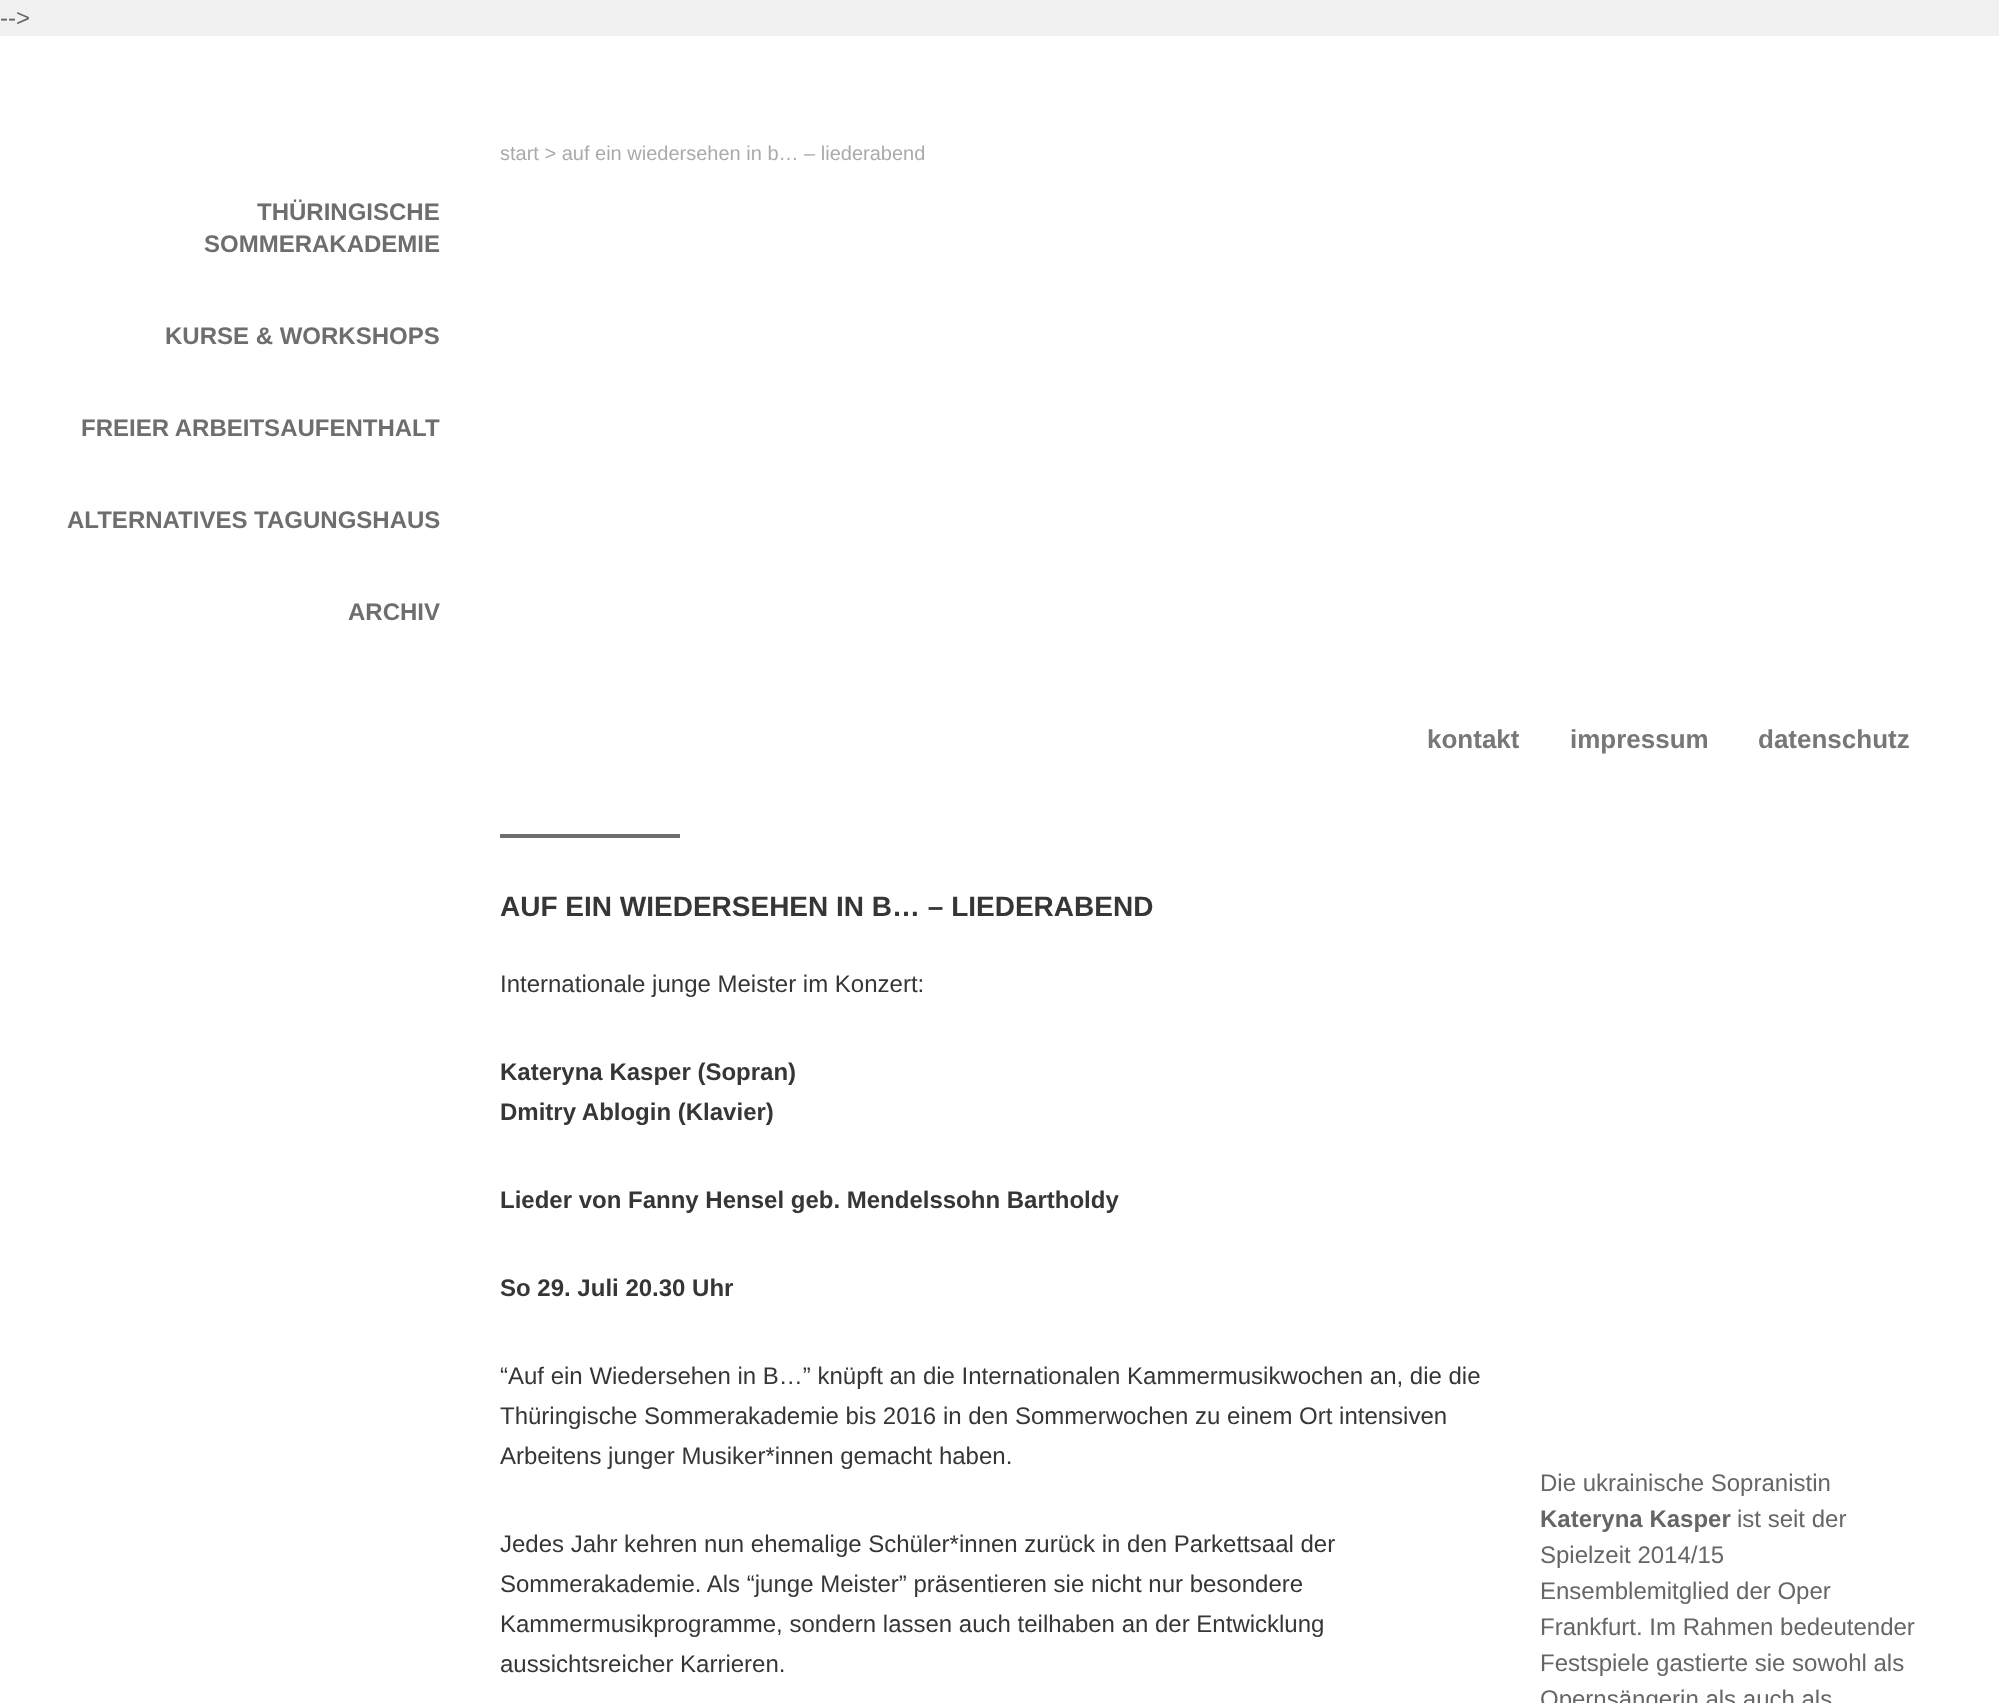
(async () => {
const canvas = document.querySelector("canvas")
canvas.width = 1999
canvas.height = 1703
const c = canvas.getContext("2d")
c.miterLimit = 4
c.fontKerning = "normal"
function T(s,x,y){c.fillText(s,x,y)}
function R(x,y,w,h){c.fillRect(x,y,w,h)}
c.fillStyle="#f1f1f1"
R(0,0,1999,1703)
c.font="24px Liberation Sans"
c.fillStyle="#666"
T("-->",0,26)
c.fillStyle="#fff"
R(0,36,1999,1667)
c.font="bold 24px Liberation Sans"
c.fillStyle="#6e6e6e"
T("THÜRINGISCHE",257,220)
T("SOMMERAKADEMIE",204,252)
T("KURSE & WORKSHOPS",165,344)
T("FREIER ARBEITSAUFENTHALT",81,436)
T("ALTERNATIVES TAGUNGSHAUS",67,528)
T("ARCHIV",348,620)
c.font="20px Liberation Sans"
c.fillStyle="#aaa"
T("start > auf ein wiedersehen in b… – liederabend",500,160)
c.fillStyle="#6e6e6e"
R(500,834,180,4)
c.font="bold 26px Liberation Sans"
c.fillStyle="#777"
T("kontakt",1427,748)
T("impressum",1570,748)
T("datenschutz",1758,748)
c.font="bold 28px Liberation Sans"
c.fillStyle="#363636"
T("AUF EIN WIEDERSEHEN IN B… – LIEDERABEND",500,916)
c.font="24px Liberation Sans"
T("Internationale junge Meister im Konzert:",500,992)
c.font="bold 24px Liberation Sans"
T("Kateryna Kasper (Sopran)",500,1080)
T("Dmitry Ablogin (Klavier)",500,1120)
T("Lieder von Fanny Hensel geb. Mendelssohn Bartholdy",500,1208)
T("So 29. Juli 20.30 Uhr",500,1296)
c.font="24px Liberation Sans"
T("“Auf ein Wiedersehen in B…” knüpft an die Internationalen Kammermusikwochen an, die die",500,1384)
T("Thüringische Sommerakademie bis 2016 in den Sommerwochen zu einem Ort intensiven",500,1424)
T("Arbeitens junger Musiker*innen gemacht haben.",500,1464)
T("Jedes Jahr kehren nun ehemalige Schüler*innen zurück in den Parkettsaal der",500,1552)
T("Sommerakademie. Als “junge Meister” präsentieren sie nicht nur besondere",500,1592)
T("Kammermusikprogramme, sondern lassen auch teilhaben an der Entwicklung",500,1632)
T("aussichtsreicher Karrieren.",500,1672)
c.fillStyle="#666"
T("Die ukrainische Sopranistin",1540,1491)
c.font="bold 24px Liberation Sans"
T("Kateryna Kasper",1540,1527)
c.font="24px Liberation Sans"
T("ist seit der",1737,1527)
T("Spielzeit 2014/15",1540,1563)
T("Ensemblemitglied der Oper",1540,1599)
T("Frankfurt. Im Rahmen bedeutender",1540,1635)
T("Festspiele gastierte sie sowohl als",1540,1671)
T("Opernsängerin als auch als",1540,1707)
})()
